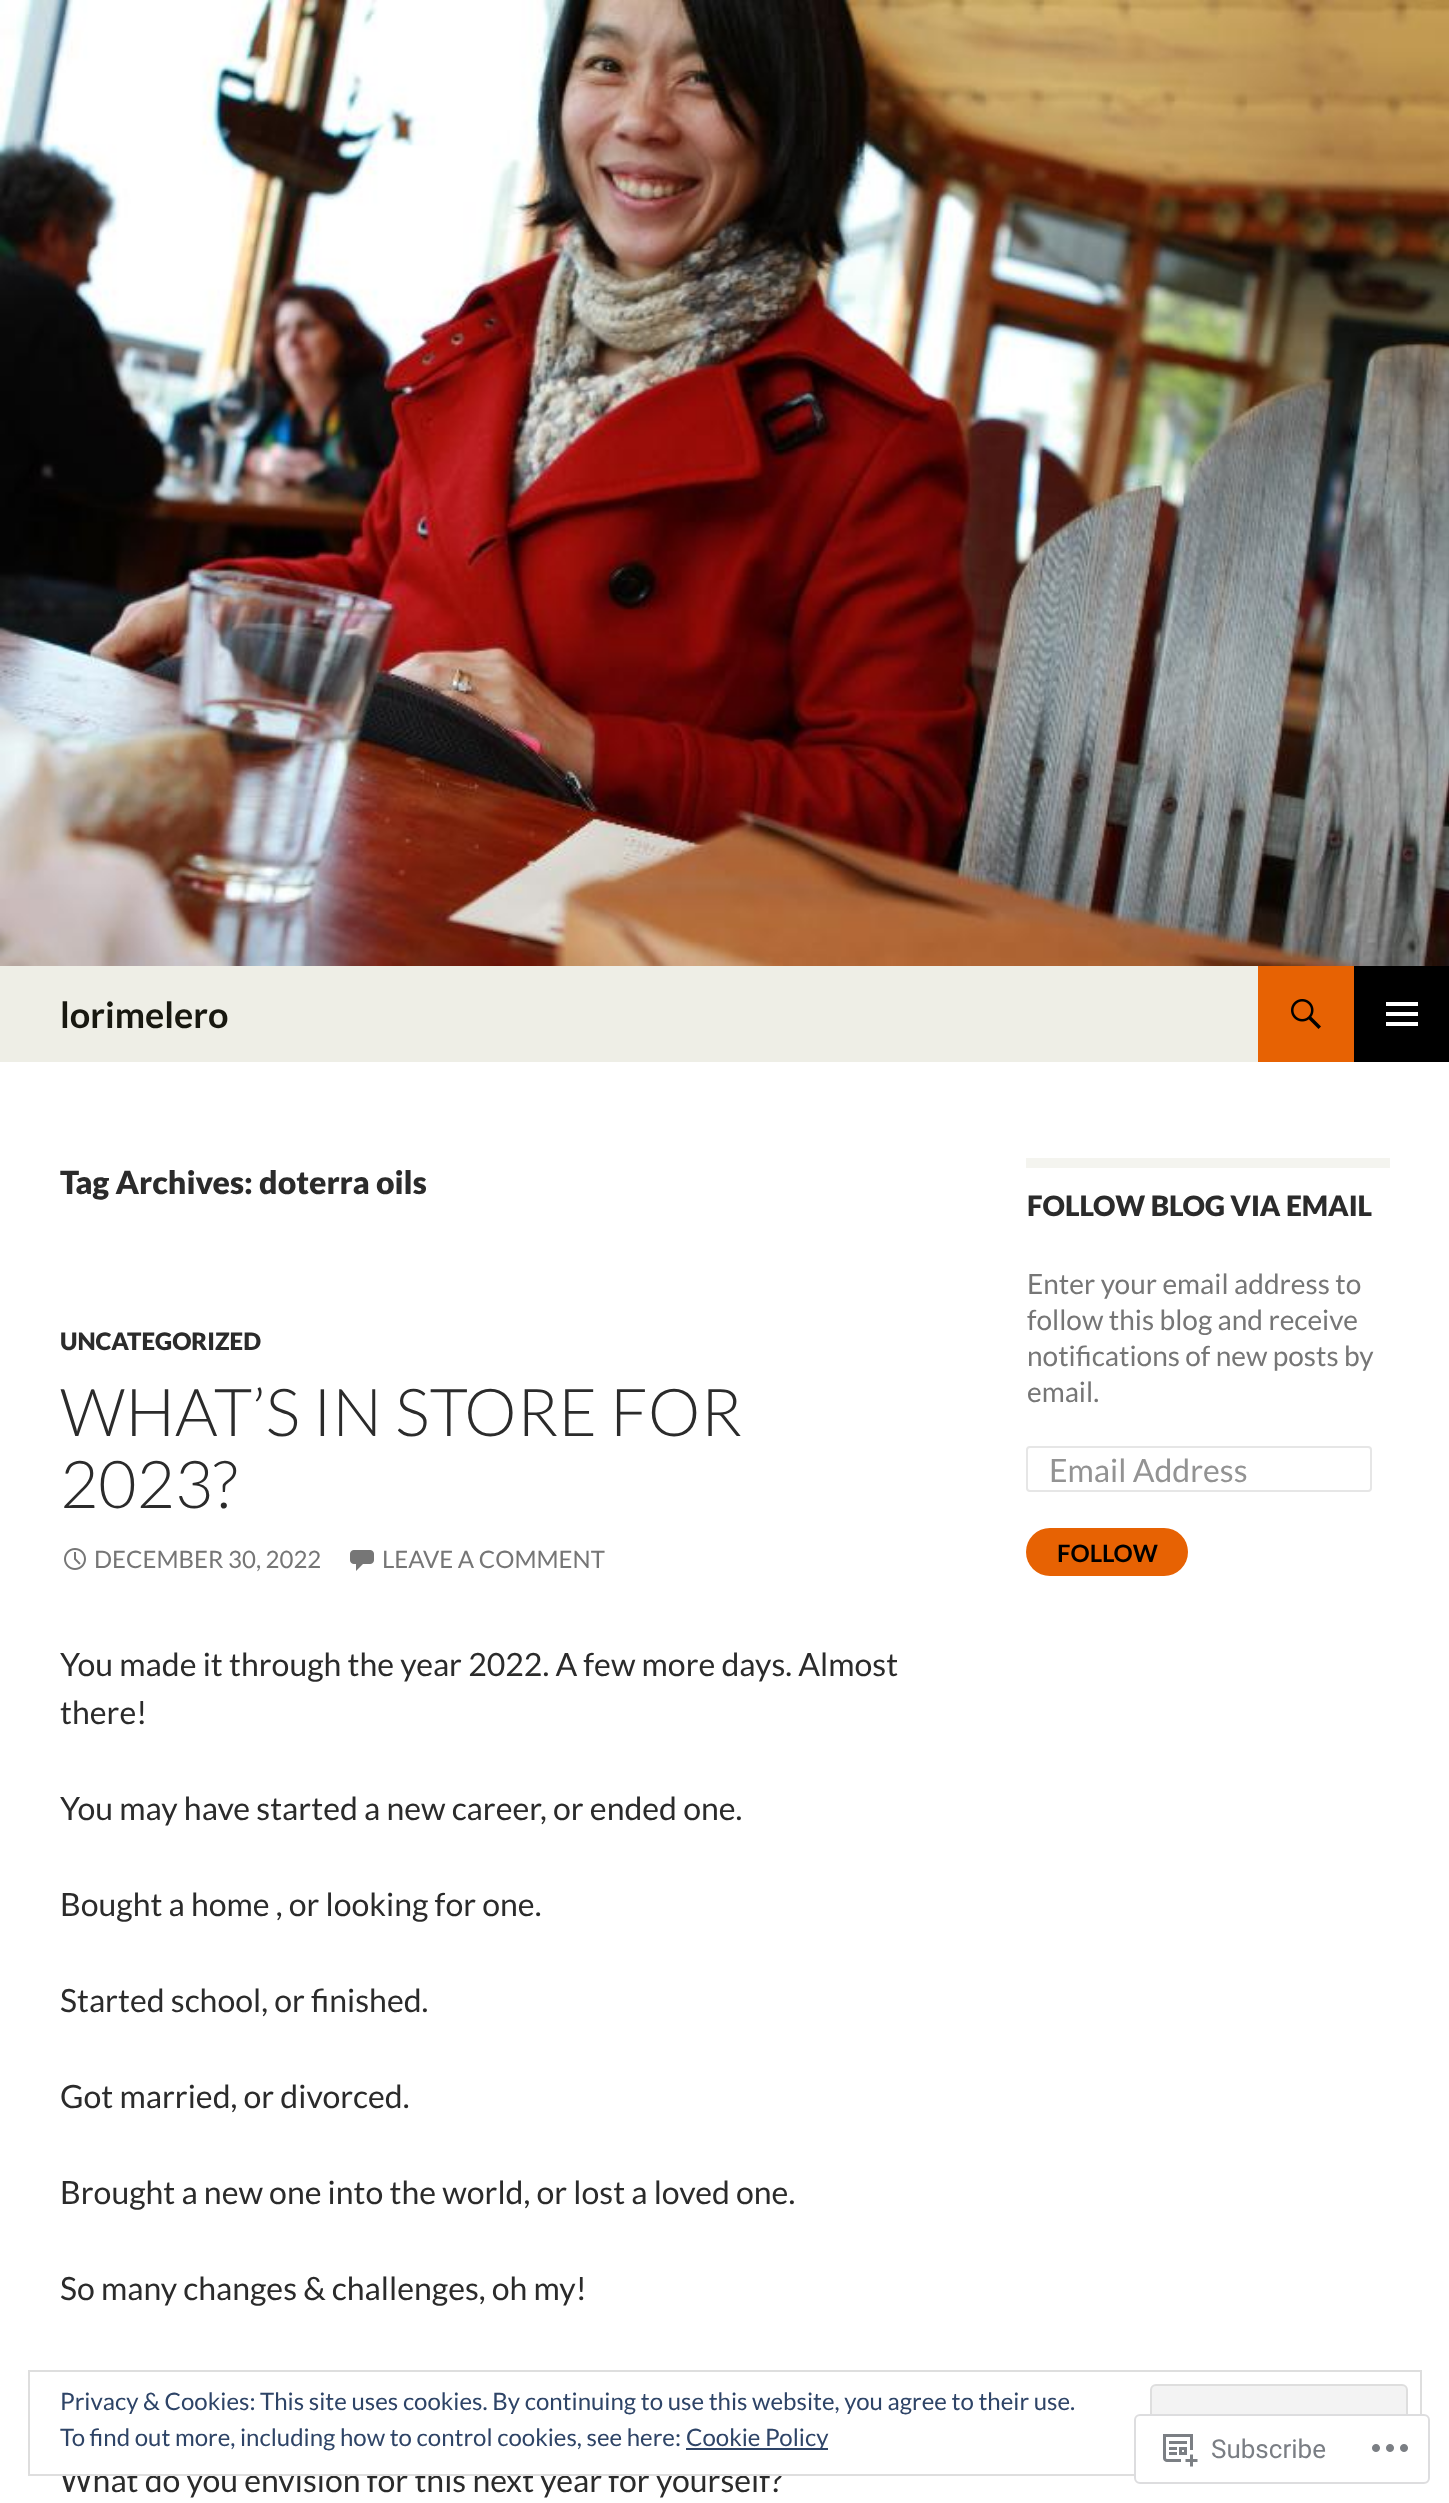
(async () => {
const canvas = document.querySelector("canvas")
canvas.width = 1449
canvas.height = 2503
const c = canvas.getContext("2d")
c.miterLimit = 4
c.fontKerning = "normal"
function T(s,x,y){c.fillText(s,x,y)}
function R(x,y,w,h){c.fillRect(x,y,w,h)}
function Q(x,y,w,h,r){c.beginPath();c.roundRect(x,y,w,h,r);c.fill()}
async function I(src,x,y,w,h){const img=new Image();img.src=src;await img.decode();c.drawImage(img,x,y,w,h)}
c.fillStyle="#fff"
R(0,0,1449,2503)
await I("1.png",0,0,1449,966)
c.fillStyle="#eeeee6"
R(0,966,1258,96)
c.font="bold 36px Lato"
c.fillStyle="#181810"
T("lorimelero",60,1028)
c.fillStyle="#e76203"
R(1258,966,96,96)
await I("2.png",1291,999,30,30)
c.fillStyle="#000"
R(1354,966,95,96)
await I("3.png",1386,1002,32,24)
c.font="900 32px Lato"
c.fillStyle="#2b2b2b"
T("Tag Archives: doterra oils",60,1194)
c.font="900 24px Lato"
T("UNCATEGORIZED",60,1350)
c.font="300 66px Lato"
T("WHAT’S IN STORE FOR",60,1436)
T("2023?",60,1508)
await I("4.png",64,1548,22,22)
c.font="24px Lato"
c.fillStyle="#767676"
T("DECEMBER 30, 2022",94,1568)
await I("5.png",350,1550,24,21)
T("LEAVE A COMMENT",382,1568)
c.font="32px Lato"
c.fillStyle="#2b2b2b"
T("You made it through the year 2022. A few more days. Almost",60,1676)
T("there!",60,1724)
T("You may have started a new career, or ended one.",60,1820)
T("Bought a home , or looking for one.",60,1916)
T("Started school, or finished.",60,2012)
T("Got married, or divorced.",60,2108)
T("Brought a new one into the world, or lost a loved one.",60,2204)
T("So many changes & challenges, oh my!",60,2300)
T("What do you envision for this next year for yourself?",60,2492)
c.fillStyle="#f4f4ef"
R(1026,1158,364,10)
c.font="900 28px Lato"
c.fillStyle="#2b2b2b"
T("FOLLOW BLOG VIA EMAIL",1027,1216)
c.font="28px Lato"
c.fillStyle="#767676"
T("Enter your email address to",1027,1294)
T("follow this blog and receive",1027,1330)
T("notifications of new posts by",1027,1366)
T("email.",1027,1402)
c.beginPath()
c.roundRect(1027,1447,344,44,3)
c.strokeStyle="#e6e6e6"
c.lineWidth=2
c.stroke()
c.font="32px Lato"
c.fillStyle="#939393"
T("Email Address",1049,1482)
c.fillStyle="#e76203"
Q(1026,1528,162,48,24)
c.font="bold 24px Lato"
c.fillStyle="#000"
T("FOLLOW",1057,1562)
c.fillStyle="#fff"
R(60,2468,723,6)
c.strokeStyle="#dedede"
c.strokeRect(29,2371,1392,104)
c.font="24px Lato"
c.fillStyle="#2e4467"
T("Privacy & Cookies: This site uses cookies. By continuing to use this website, you agree to their use.",60,2410)
c.fillStyle="#f3f3f3"
c.beginPath()
c.roundRect(1151,2385,256,76,5)
c.fill()
c.stroke()
c.fillStyle="#2e4467"
T("To find out more, including how to control cookies, see here:",60,2446)
R(686,2448,142,2)
T("Cookie Policy",686,2446)
c.fillStyle="#fffffffa"
Q(1134,2414,296,70,6)
c.beginPath()
c.roundRect(1135,2415,294,68,5)
c.strokeStyle="#dcdcdefa"
c.stroke()
await I("6.png",1163,2434,35,33)
c.font="26px Roboto"
c.fillStyle="#7a7e84"
T("Subscribe",1211,2458)
await I("7.png",1372,2444,36,8)
})()
